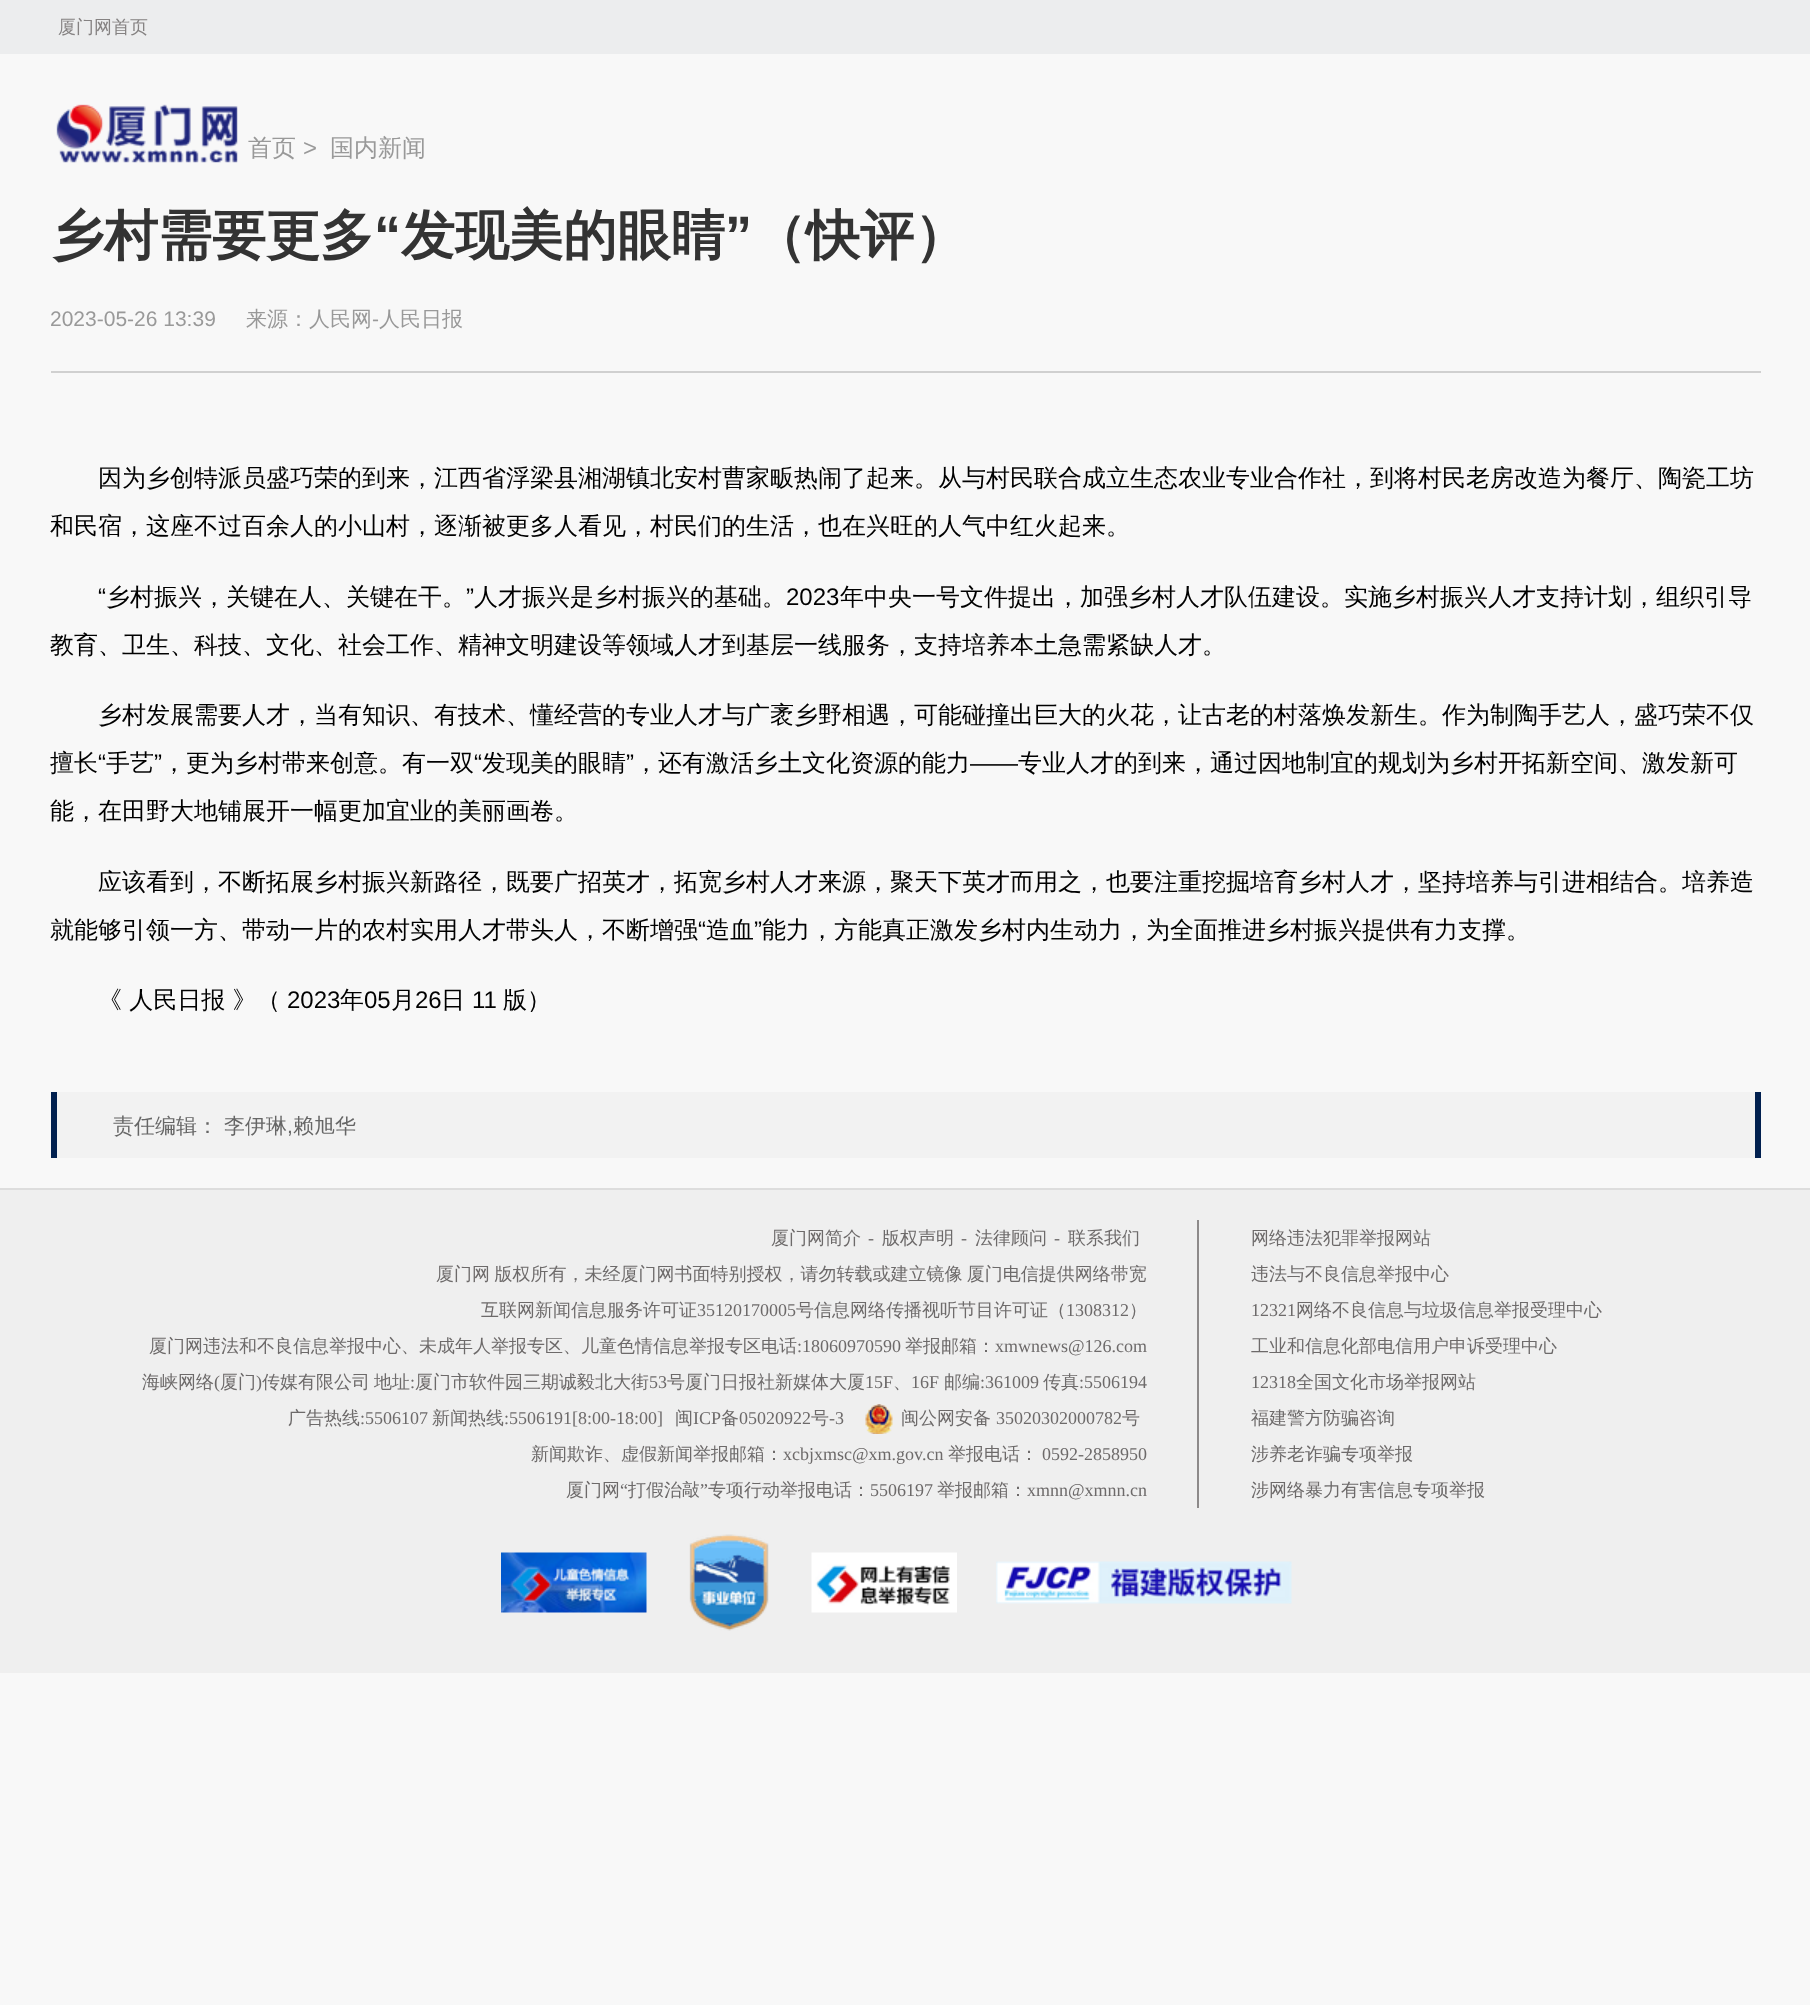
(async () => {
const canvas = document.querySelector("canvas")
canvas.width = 1810
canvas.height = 2005
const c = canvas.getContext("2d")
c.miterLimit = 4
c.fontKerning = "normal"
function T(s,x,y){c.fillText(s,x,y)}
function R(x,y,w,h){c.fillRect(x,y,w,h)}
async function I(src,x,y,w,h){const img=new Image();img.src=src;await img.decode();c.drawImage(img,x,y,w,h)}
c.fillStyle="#f8f8f8"
R(0,0,1810,2005)
c.fillStyle="#ecedee"
R(0,0,1810,54)
c.font="500 18px WenQuanYi Zen Hei"
c.fillStyle="#858282"
T("厦门网首页",58,33)
await I("1.png",56,104,182,59)
c.font="500 24px WenQuanYi Zen Hei"
c.fillStyle="#999"
T("首页",248,156)
c.font="24px Liberation Sans"
T(">",303,156)
c.font="500 24px WenQuanYi Zen Hei"
T("国内新闻",330,156)
c.font="bold 54px WenQuanYi Zen Hei"
c.fillStyle="#333"
T("乡村需要更多",50,254)
c.font="bold 54px Liberation Sans"
T("“",374,254)
c.font="bold 54px WenQuanYi Zen Hei"
T("发现美的眼睛",401,254)
c.font="bold 54px Liberation Sans"
T("”",725,254)
c.font="bold 54px WenQuanYi Zen Hei"
T("（快评）",752,254)
c.font="21px Liberation Sans"
c.fillStyle="#999"
T("2023-05-26 13:39",50,326)
c.font="500 21px WenQuanYi Zen Hei"
T("来源：人民网",246,326)
c.font="21px Liberation Sans"
T("-",372,326)
c.font="500 21px WenQuanYi Zen Hei"
T("人民日报",379,326)
c.fillStyle="#d0d0d0"
R(51,371,1710,2)
c.font="500 24px WenQuanYi Zen Hei"
c.fillStyle="#000"
T("因为乡创特派员盛巧荣的到来，江西省浮梁县湘湖镇北安村曹家畈热闹了起来。从与村民联合成立生态农业专业合作社，到将村民老房改造为餐厅、陶瓷工坊",98,486)
T("和民宿，这座不过百余人的小山村，逐渐被更多人看见，村民们的生活，也在兴旺的人气中红火起来。",50,534)
c.font="24px Liberation Sans"
T("“",98,605)
c.font="500 24px WenQuanYi Zen Hei"
T("乡村振兴，关键在人、关键在干。",106,605)
c.font="24px Liberation Sans"
T("”",466,605)
c.font="500 24px WenQuanYi Zen Hei"
T("人才振兴是乡村振兴的基础。",474,605)
c.font="24px Liberation Sans"
T("2023",786,605)
c.font="500 24px WenQuanYi Zen Hei"
T("年中央一号文件提出，加强乡村人才队伍建设。实施乡村振兴人才支持计划，组织引导",840,605)
T("教育、卫生、科技、文化、社会工作、精神文明建设等领域人才到基层一线服务，支持培养本土急需紧缺人才。",50,653)
T("乡村发展需要人才，当有知识、有技术、懂经营的专业人才与广袤乡野相遇，可能碰撞出巨大的火花，让古老的村落焕发新生。作为制陶手艺人，盛巧荣不仅",98,723)
T("擅长",50,771)
c.font="24px Liberation Sans"
T("“",98,771)
c.font="500 24px WenQuanYi Zen Hei"
T("手艺",106,771)
c.font="24px Liberation Sans"
T("”",154,771)
c.font="500 24px WenQuanYi Zen Hei"
T("，更为乡村带来创意。有一双",162,771)
c.font="24px Liberation Sans"
T("“",474,771)
c.font="500 24px WenQuanYi Zen Hei"
T("发现美的眼睛",482,771)
c.font="24px Liberation Sans"
T("”",626,771)
c.font="500 24px WenQuanYi Zen Hei"
T("，还有激活乡土文化资源的能力",634,771)
c.font="24px Liberation Sans"
T("——",970,771)
c.font="500 24px WenQuanYi Zen Hei"
T("专业人才的到来，通过因地制宜的规划为乡村开拓新空间、激发新可",1018,771)
T("能，在田野大地铺展开一幅更加宜业的美丽画卷。",50,819)
T("应该看到，不断拓展乡村振兴新路径，既要广招英才，拓宽乡村人才来源，聚天下英才而用之，也要注重挖掘培育乡村人才，坚持培养与引进相结合。培养造",98,890)
T("就能够引领一方、带动一片的农村实用人才带头人，不断增强",50,938)
c.font="24px Liberation Sans"
T("“",698,938)
c.font="500 24px WenQuanYi Zen Hei"
T("造血",706,938)
c.font="24px Liberation Sans"
T("”",754,938)
c.font="500 24px WenQuanYi Zen Hei"
T("能力，方能真正激发乡村内生动力，为全面推进乡村振兴提供有力支撑。",762,938)
T("《 人民日报 》（",98,1008)
c.font="24px Liberation Sans"
T("2023",287,1008)
c.font="500 24px WenQuanYi Zen Hei"
T("年",340,1008)
c.font="24px Liberation Sans"
T("05",364,1008)
c.font="500 24px WenQuanYi Zen Hei"
T("月",391,1008)
c.font="24px Liberation Sans"
T("26",415,1008)
c.font="500 24px WenQuanYi Zen Hei"
T("日",441,1008)
c.font="24px Liberation Sans"
T("11",472,1008)
c.font="500 24px WenQuanYi Zen Hei"
T("版）",503,1008)
c.fillStyle="#f2f2f2"
R(57,1092,1698,66)
c.fillStyle="#01204f"
R(1755,1092,6,66)
R(51,1092,6,66)
c.font="500 21px WenQuanYi Zen Hei"
c.fillStyle="#666"
T("责任编辑：",113,1133)
T("李伊琳",224,1133)
c.font="21px Liberation Sans"
T(",",287,1133)
c.font="500 21px WenQuanYi Zen Hei"
T("赖旭华",293,1133)
c.fillStyle="#efefef"
R(0,1190,1810,483)
c.fillStyle="#ddd"
R(0,1188,1810,2)
c.font="500 18px WenQuanYi Zen Hei"
c.fillStyle="#6d6a6a"
T("厦门网简介",771,1244)
c.font="18px Liberation Serif"
T("-",868,1244)
c.font="500 18px WenQuanYi Zen Hei"
T("版权声明",882,1244)
c.font="18px Liberation Serif"
T("-",961,1244)
c.font="500 18px WenQuanYi Zen Hei"
T("法律顾问",975,1244)
c.font="18px Liberation Serif"
T("-",1054,1244)
c.font="500 18px WenQuanYi Zen Hei"
T("联系我们",1068,1244)
c.wordSpacing="-1px"
T("厦门网 版权所有，未经厦门网书面特别授权，请勿转载或建立镜像 厦门电信提供网络带宽",436,1280)
c.wordSpacing="0px"
T("互联网新闻信息服务许可证",481,1316)
c.font="18px Liberation Serif"
T("35120170005",697,1316)
c.font="500 18px WenQuanYi Zen Hei"
T("号信息网络传播视听节目许可证（",796,1316)
c.font="18px Liberation Serif"
T("1308312",1066,1316)
c.font="500 18px WenQuanYi Zen Hei"
T("）",1129,1316)
T("厦门网违法和不良信息举报中心、未成年人举报专区、儿童色情信息举报专区电话",149,1352)
c.font="18px Liberation Serif"
T(":18060970590",797,1352)
c.font="500 18px WenQuanYi Zen Hei"
T("举报邮箱：",905,1352)
c.font="18px Liberation Serif"
T("xmwnews@126.com",995,1352)
c.font="500 18px WenQuanYi Zen Hei"
T("海峡网络",142,1388)
c.font="18px Liberation Serif"
T("(",214,1388)
c.font="500 18px WenQuanYi Zen Hei"
T("厦门",220,1388)
c.font="18px Liberation Serif"
T(")",256,1388)
c.font="500 18px WenQuanYi Zen Hei"
T("传媒有限公司",262,1388)
T("地址",374,1388)
c.font="18px Liberation Serif"
T(":",410,1388)
c.font="500 18px WenQuanYi Zen Hei"
T("厦门市软件园三期诚毅北大街",415,1388)
c.font="18px Liberation Serif"
T("53",649,1388)
c.font="500 18px WenQuanYi Zen Hei"
T("号厦门日报社新媒体大厦",667,1388)
c.font="18px Liberation Serif"
T("15F",865,1388)
c.font="500 18px WenQuanYi Zen Hei"
T("、",893,1388)
c.font="18px Liberation Serif"
T("16F",911,1388)
c.font="500 18px WenQuanYi Zen Hei"
T("邮编",944,1388)
c.font="18px Liberation Serif"
T(":361009",980,1388)
c.font="500 18px WenQuanYi Zen Hei"
T("传真",1043,1388)
c.font="18px Liberation Serif"
T(":5506194",1079,1388)
c.font="500 18px WenQuanYi Zen Hei"
T("广告热线",288,1424)
c.font="18px Liberation Serif"
T(":5506107",360,1424)
c.font="500 18px WenQuanYi Zen Hei"
T("新闻热线",432,1424)
c.font="18px Liberation Serif"
T(":5506191[8:00-18:00]",504,1424)
c.font="500 18px WenQuanYi Zen Hei"
T("闽",675,1424)
c.font="18px Liberation Serif"
T("ICP",693,1424)
c.font="500 18px WenQuanYi Zen Hei"
T("备",721,1424)
c.font="18px Liberation Serif"
T("05020922",739,1424)
c.font="500 18px WenQuanYi Zen Hei"
T("号",811,1424)
c.font="18px Liberation Serif"
T("-3",829,1424)
await I("2.png",865,1404,28,30)
c.font="500 18px WenQuanYi Zen Hei"
T("闽公网安备",901,1424)
c.font="18px Liberation Serif"
T("35020302000782",996,1424)
c.font="500 18px WenQuanYi Zen Hei"
T("号",1122,1424)
T("新闻欺诈、虚假新闻举报邮箱：",531,1460)
c.font="18px Liberation Serif"
T("xcbjxmsc@xm.gov.cn",783,1460)
c.font="500 18px WenQuanYi Zen Hei"
T("举报电话：",948,1460)
c.font="18px Liberation Serif"
T("0592-2858950",1042,1460)
c.font="500 18px WenQuanYi Zen Hei"
T("厦门网",566,1496)
c.font="18px Liberation Serif"
T("“",620,1496)
c.font="500 18px WenQuanYi Zen Hei"
T("打假治敲",628,1496)
c.font="18px Liberation Serif"
T("”",700,1496)
c.font="500 18px WenQuanYi Zen Hei"
T("专项行动举报电话：",708,1496)
c.font="18px Liberation Serif"
T("5506197",870,1496)
c.font="500 18px WenQuanYi Zen Hei"
T("举报邮箱：",937,1496)
c.font="18px Liberation Serif"
T("xmnn@xmnn.cn",1027,1496)
c.fillStyle="#8d8a8a"
R(1197,1220,2,288)
c.font="500 18px WenQuanYi Zen Hei"
c.fillStyle="#6d6a6a"
T("网络违法犯罪举报网站",1251,1244)
T("违法与不良信息举报中心",1251,1280)
c.font="18px Liberation Serif"
T("12321",1251,1316)
c.font="500 18px WenQuanYi Zen Hei"
T("网络不良信息与垃圾信息举报受理中心",1296,1316)
T("工业和信息化部电信用户申诉受理中心",1251,1352)
c.font="18px Liberation Serif"
T("12318",1251,1388)
c.font="500 18px WenQuanYi Zen Hei"
T("全国文化市场举报网站",1296,1388)
T("福建警方防骗咨询",1251,1424)
T("涉养老诈骗专项举报",1251,1460)
T("涉网络暴力有害信息专项举报",1251,1496)
await I("3.png",501,1552,146,61)
await I("4.png",689,1534,80,97)
await I("5.png",811,1552,146,61)
await I("6.png",996,1561,296,43)
})()
